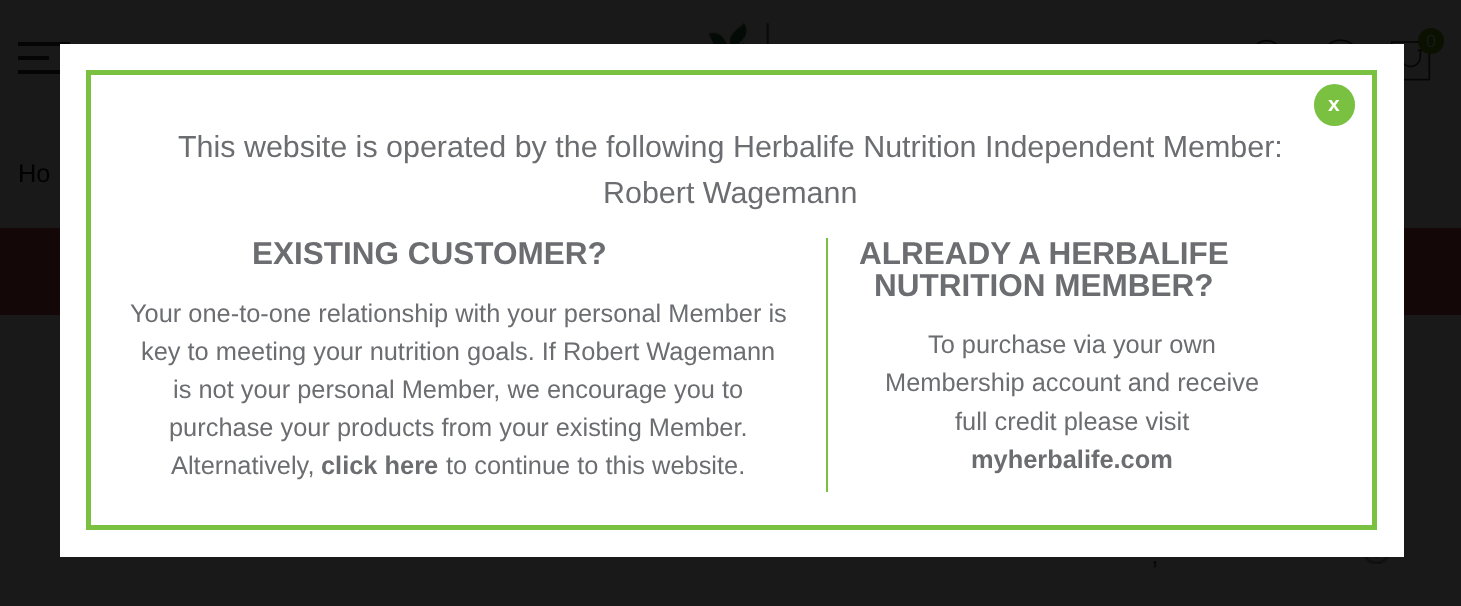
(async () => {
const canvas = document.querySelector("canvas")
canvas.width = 1461
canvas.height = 606
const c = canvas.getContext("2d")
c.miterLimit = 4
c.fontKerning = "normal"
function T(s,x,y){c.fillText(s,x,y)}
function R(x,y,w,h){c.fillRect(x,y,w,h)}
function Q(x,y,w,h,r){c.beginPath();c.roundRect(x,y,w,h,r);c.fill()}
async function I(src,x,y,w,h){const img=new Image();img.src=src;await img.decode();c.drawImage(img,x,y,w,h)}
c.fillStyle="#191919"
R(0,0,1461,606)
c.fillStyle="#050505"
R(18,42,52,4)
R(18,56,31,4)
R(18,70,42,4)
await I("1.png",708,22,62,22)
await I("2.png",1256,39,22,5)
await I("3.png",1328,39,25,5)
await I("4.png",1390,41,41,40)
c.fillStyle="#0b1101"
c.beginPath()
c.arc(1431,41,13,0,7)
c.fill()
c.font="18px Liberation Sans"
c.fillStyle="#191919"
T("0",1426,47)
c.font="25.4px Liberation Sans"
c.fillStyle="#030202"
T("Ho",18,182)
c.fillStyle="#140707"
R(0,228,1461,87)
c.font="28px Liberation Sans"
c.fillStyle="#080808"
T(",",1151,564)
await I("5.png",1363,557,27,7)
c.fillStyle="#fff"
R(60,44,1344,513)
c.strokeStyle="#7ac142"
c.lineWidth=5
c.strokeRect(88.5,72.5,1286,455)
c.fillStyle="#7ac142"
Q(1314,84,41,42,20.5)
c.font="bold 21px Liberation Sans"
c.fillStyle="#fff"
T("x",1328,111)
c.font="30.45px Liberation Sans"
c.fillStyle="#6c6d70"
T("This website is operated by the following Herbalife Nutrition Independent Member:",178,157)
T("Robert Wagemann",603,203)
c.font="bold 31.5px Liberation Sans"
T("EXISTING CUSTOMER?",252,264)
c.font="25.4px Liberation Sans"
T("Your one-to-one relationship with your personal Member is",130,322)
T("key to meeting your nutrition goals. If Robert Wagemann",141,360)
T("is not your personal Member, we encourage you to",173,398)
T("purchase your products from your existing Member.",169,436)
T("Alternatively,",171,474)
c.font="bold 25.4px Liberation Sans"
T("click here",321,474)
c.font="25.4px Liberation Sans"
T("to continue to this website.",446,474)
c.fillStyle="#7ac142"
R(826,238,2,254)
c.font="bold 31.5px Liberation Sans"
c.fillStyle="#6c6d70"
T("ALREADY A HERBALIFE",859,264)
T("NUTRITION MEMBER?",874,296)
c.font="25.4px Liberation Sans"
T("To purchase via your own",928,353)
T("Membership account and receive",885,391)
T("full credit please visit",955,430)
c.font="bold 25.4px Liberation Sans"
T("myherbalife.com",971,468)
})()
